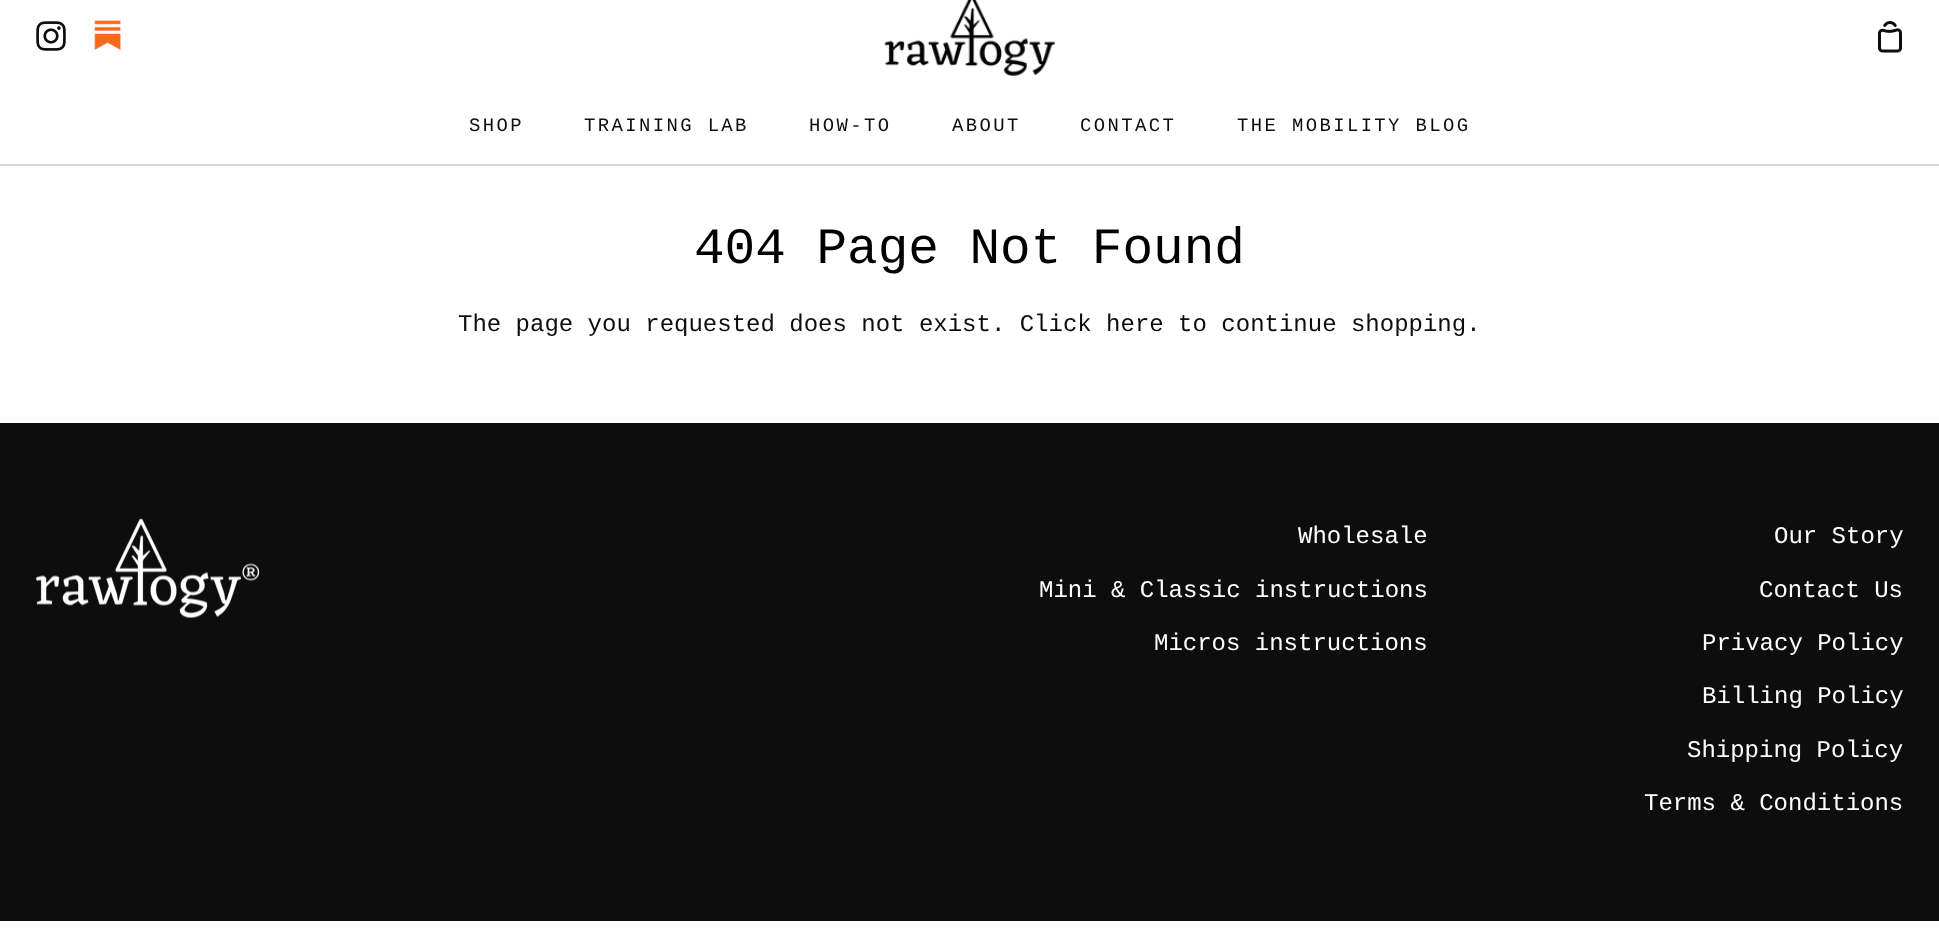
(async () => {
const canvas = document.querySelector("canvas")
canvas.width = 1939
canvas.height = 950
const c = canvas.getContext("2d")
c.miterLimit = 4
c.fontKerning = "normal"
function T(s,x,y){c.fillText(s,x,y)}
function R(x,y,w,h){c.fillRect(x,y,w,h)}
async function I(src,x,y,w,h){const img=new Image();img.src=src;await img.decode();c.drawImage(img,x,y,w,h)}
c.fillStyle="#fff"
R(0,0,1939,950)
c.fillStyle="#dcd6cb"
R(0,164,1939,2)
await I("1.png",36,21,30,30)
await I("2.png",94,20,27,30)
await I("3.png",884,0,171,76)
await I("4.png",1878,21,24,32)
c.letterSpacing="2.4px"
c.font="18.9px Liberation Mono"
c.fillStyle="#0d0d0d"
T("SHOP",469,131)
T("TRAINING LAB",584,131)
T("HOW-TO",809,131)
T("ABOUT",952,131)
T("CONTACT",1080,131)
T("THE MOBILITY BLOG",1237,131)
c.letterSpacing="0px"
c.font="51px Liberation Mono"
c.fillStyle="#000"
T("404 Page Not Found",694,263)
c.font="24px Liberation Mono"
c.fillStyle="#0d0d0d"
T("The page you requested does not exist. Click here to continue shopping.",458,331)
R(0,423,1939,498)
await I("5.png",36,518,224,100)
c.fillStyle="#fff"
T("Wholesale",1298,543)
T("Mini & Classic instructions",1039,597)
T("Micros instructions",1154,650)
T("Our Story",1774,543)
T("Contact Us",1759,597)
T("Privacy Policy",1702,650)
T("Billing Policy",1702,703)
T("Shipping Policy",1687,757)
T("Terms & Conditions",1644,810)
})()
